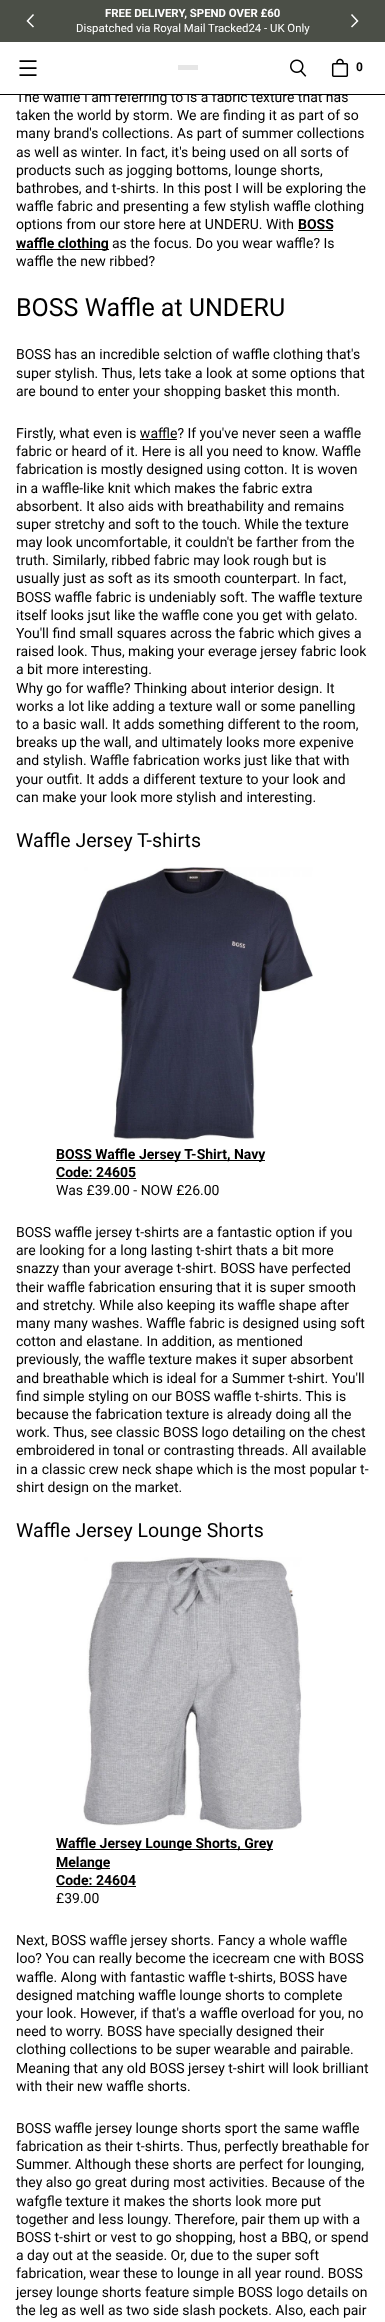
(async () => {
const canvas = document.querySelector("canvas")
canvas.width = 385
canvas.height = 2322
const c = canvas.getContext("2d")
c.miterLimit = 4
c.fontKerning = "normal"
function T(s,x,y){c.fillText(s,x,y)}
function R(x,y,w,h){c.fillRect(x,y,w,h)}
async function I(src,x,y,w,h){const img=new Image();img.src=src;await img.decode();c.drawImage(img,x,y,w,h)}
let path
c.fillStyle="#fff"
R(0,0,385,2322)
c.font="14px Roboto"
c.fillStyle="#000"
T("The waffle I am referring to is a fabric texture that has",16,102)
c.fillStyle="#fff"
R(16,91,313,3)
c.fillStyle="#4b4f47"
R(0,0,385,42)
path = new Path2D("M33.5 14.5l-6 6.5l6 6")
c.strokeStyle="#fff"
c.lineWidth=1.5
c.stroke(path)
c.font="bold 11.4px Roboto"
c.fillStyle="#fff"
T("FREE DELIVERY, SPEND OVER £60",105,17)
c.font="11.4px Roboto"
T("Dispatched via Royal Mail Tracked24 - UK Only",76,32)
path = new Path2D("M351.5 27l6-6l-6-6.5")
c.stroke(path)
c.fillStyle="#000"
R(0,94,385,1)
await I("1.png",19,60,18,16)
c.fillStyle="#e6e6e6"
R(178,65,20,5)
await I("2.png",290,59,17,18)
await I("3.png",331,58,18,19)
c.font="bold 12px Roboto"
c.fillStyle="#000"
T("0",356,71)
c.font="14px Roboto"
T("taken the world by storm. We are finding it as part of so",16,120)
T("many brand's collections. As part of summer collections",16,138)
T("as well as winter. In fact, it's being used on all sorts of",16,157)
T("products such as jogging bottoms, lounge shorts,",16,175)
T("bathrobes, and t-shirts. In this post I will be exploring the",16,193)
T("waffle fabric and presenting a few stylish waffle clothing",16,211)
T("options from our store here at UNDERU. With",16,229)
c.font="bold 14px Roboto"
T("BOSS",298,229)
R(298,230,35,1)
R(16,249,93,1)
T("waffle clothing",16,248)
c.font="14px Roboto"
T("as the focus. Do you wear waffle? Is",112,248)
T("waffle the new ribbed?",16,266)
c.font="25px Roboto"
T("BOSS Waffle at UNDERU",16,316)
c.font="14px Roboto"
T("BOSS has an incredible selction of waffle clothing that's",16,359)
T("super stylish. Thus, lets take a look at some options that",16,378)
T("are bound to enter your shopping basket this month.",16,396)
T("Firstly, what even is waffle? If you've never seen a waffle",16,438)
R(140,439,37,1)
T("fabric or heard of it. Here is all you need to know. Waffle",16,456)
T("fabrication is mostly designed using cotton. It is woven",16,474)
T("in a waffle-like knit which makes the fabric extra",16,493)
T("absorbent. It also aids with breathability and remains",16,511)
T("super stretchy and soft to the touch. While the texture",16,529)
T("may look uncomfortable, it couldn't be farther from the",16,547)
T("truth. Similarly, ribbed fabric may look rough but is",16,565)
T("usually just as soft as its smooth counterpart. In fact,",16,583)
T("BOSS waffle fabric is undeniably soft. The waffle texture",16,602)
T("itself looks jsut like the waffle cone you get with gelato.",16,620)
T("You'll find small squares across the fabric which gives a",16,638)
T("raised look. Thus, making your everage jersey fabric look",16,656)
T("a bit more interesting.",16,674)
T("Why go for waffle? Thinking about interior design. It",16,693)
T("works a lot like adding a texture wall or some panelling",16,711)
T("to a basic wall. It adds something different to the room,",16,729)
T("breaks up the wall, and ultimately looks more expenive",16,747)
T("and stylish. Waffle fabrication works just like that with",16,765)
T("your outfit. It adds a different texture to your look and",16,784)
T("can make your look more stylish and interesting.",16,802)
c.font="19.5px Roboto"
T("Waffle Jersey T-shirts",16,847)
await I("4.png",72,867,241,273)
R(56,1160,209,1)
c.font="bold 14px Roboto"
T("BOSS Waffle Jersey T-Shirt, Navy",56,1159)
T("Code: 24605",56,1177)
R(56,1178,80,1)
c.font="14px Roboto"
T("Was £39.00 - NOW £26.00",56,1195)
T("BOSS waffle jersey t-shirts are a fantastic option if you",16,1237)
T("are looking for a long lasting t-shirt thats a bit more",16,1255)
T("snazzy than your average t-shirt. BOSS have perfected",16,1273)
T("their waffle fabrication ensuring that it is super smooth",16,1292)
T("and stretchy. While also keeping its waffle shape after",16,1310)
T("many many washes. Waffle fabric is designed using soft",16,1328)
T("cotton and elastane. In addition, as mentioned",16,1346)
T("previously, the waffle texture makes it super absorbent",16,1364)
T("and breathable which is ideal for a Summer t-shirt. You'll",16,1383)
T("find simple styling on our BOSS waffle t-shirts. This is",16,1401)
T("because the fabrication texture is already doing all the",16,1419)
T("work. Thus, see classic BOSS logo detailing on the chest",16,1437)
T("embroidered in tonal or contrasting threads. All available",16,1455)
T("in a classic crew neck shape which is the most popular t-",16,1474)
T("shirt design on the market.",16,1492)
c.font="19.5px Roboto"
T("Waffle Jersey Lounge Shorts",16,1537)
await I("5.png",83,1557,219,273)
R(56,1849,217,1)
c.font="bold 14px Roboto"
T("Waffle Jersey Lounge Shorts, Grey",56,1848)
R(56,1868,54,1)
T("Melange",56,1867)
T("Code: 24604",56,1885)
R(56,1886,80,1)
c.font="14px Roboto"
T("£39.00",56,1903)
T("Next, BOSS waffle jersey shorts. Fancy a whole waffle",16,1945)
T("loo? You can really become the icecream cne with BOSS",16,1963)
T("waffle. Along with fantastic waffle t-shirts, BOSS have",16,1982)
T("designed matching waffle lounge shorts to complete",16,2000)
T("your look. However, if that's a waffle overload for you, no",16,2018)
T("need to worry. BOSS have specially designed their",16,2036)
T("clothing collections to be super wearable and pairable.",16,2054)
T("Meaning that any old BOSS jersey t-shirt will look brilliant",16,2073)
T("with their new waffle shorts.",16,2091)
T("BOSS waffle jersey lounge shorts sport the same waffle",16,2133)
T("fabrication as their t-shirts. Thus, perfectly breathable for",16,2151)
T("Summer. Although these shorts are perfect for lounging,",16,2169)
T("they also go great during most activities. Because of the",16,2187)
T("wafgfle texture it makes the shorts look more put",16,2206)
T("together and less loungy. Therefore, pair them up with a",16,2224)
T("BOSS t-shirt or vest to go shopping, host a BBQ, or spend",16,2242)
T("a day out at the seaside. Or, due to the super soft",16,2260)
T("fabrication, wear these to lounge in all year round. BOSS",16,2278)
T("jersey lounge shorts feature simple BOSS logo details on",16,2297)
T("the leg as well as two side slash pockets. Also, each pair",16,2315)
})()
